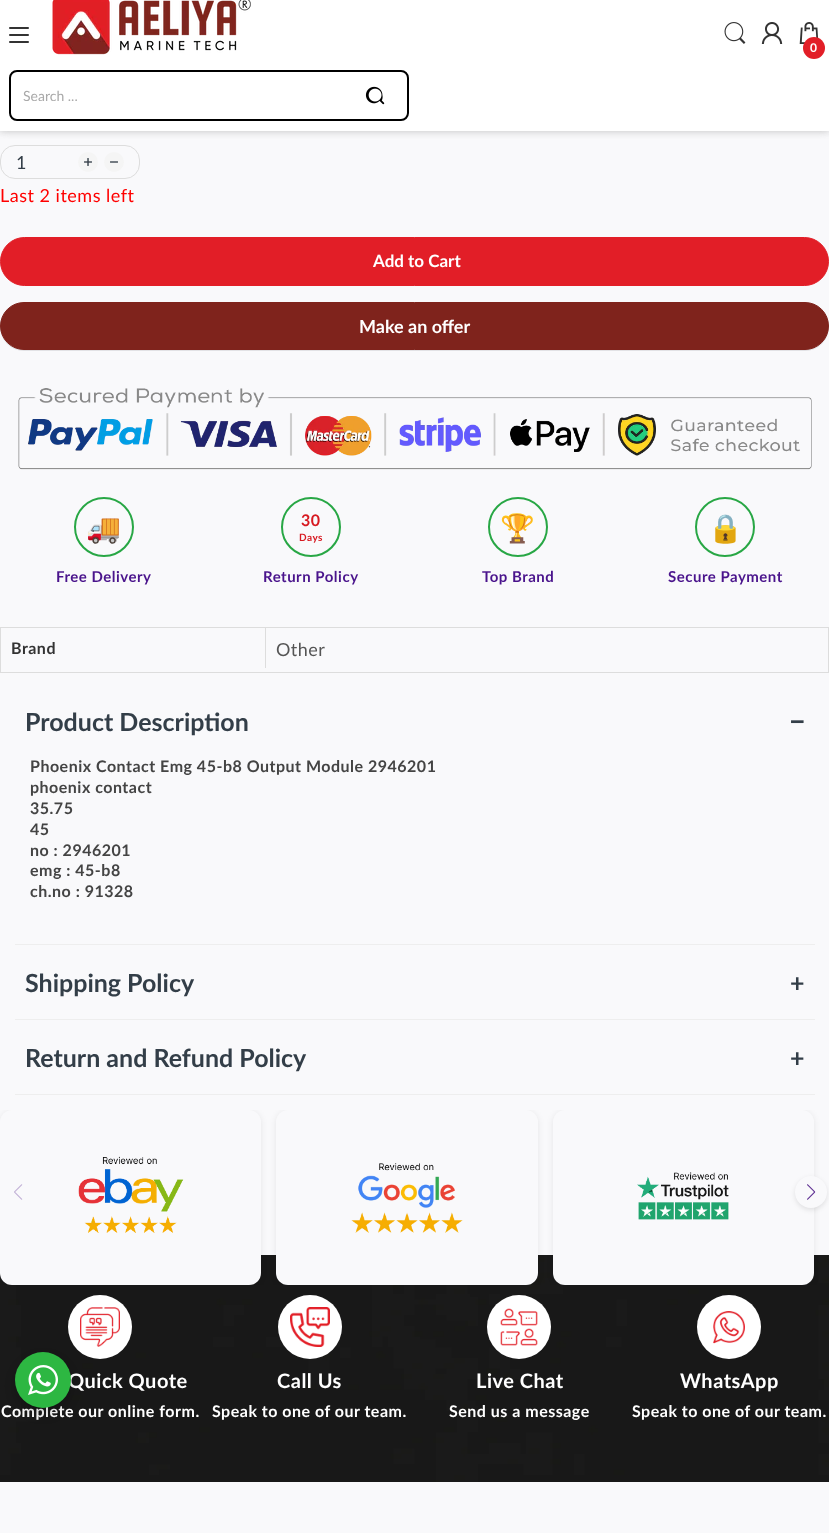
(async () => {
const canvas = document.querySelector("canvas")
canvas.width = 829
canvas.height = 1533
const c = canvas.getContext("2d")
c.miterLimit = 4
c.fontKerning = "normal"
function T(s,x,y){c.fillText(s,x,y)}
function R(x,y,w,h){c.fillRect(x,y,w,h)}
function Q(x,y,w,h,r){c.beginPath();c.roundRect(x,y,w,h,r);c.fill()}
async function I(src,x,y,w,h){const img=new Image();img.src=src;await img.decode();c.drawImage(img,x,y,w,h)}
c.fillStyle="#f9f9fb"
R(0,0,829,1533)
c.fillStyle="#20212426"
c.filter="blur(3px)"
c.beginPath()
c.rect(0,0,829,131)
c.fill()
c.filter="none"
c.fillStyle="#fff"
R(0,0,829,131)
c.save()
c.beginPath()
c.rect(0,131,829,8)
c.clip()
c.fillStyle="#c9c9c9bf"
c.filter="blur(4px)"
c.beginPath()
c.rect(0,0,829,131)
c.fill()
c.filter="none"
c.restore()
await I("1.png",9,27,20,16)
await I("2.png",52,0,199,55)
await I("3.png",724,22,22,22)
await I("4.png",761,22,22,22)
await I("5.png",799,22,20,22)
c.fillStyle="#e21e27"
c.beginPath()
c.arc(814,48,11,0,7)
c.fill()
c.letterSpacing="0.5px"
c.font="bold 12px lato"
c.fillStyle="#fff"
T("0",810,52)
c.beginPath()
c.roundRect(10,71,398,49,7)
c.strokeStyle="#000"
c.lineWidth=2
c.stroke()
c.letterSpacing="0px"
c.font="14px lato"
c.fillStyle="#a9a9a9"
T("Search ...",23,101)
await I("6.png",365,86,20,19)
c.beginPath()
c.roundRect(.5,145.5,139,33,14.5)
c.strokeStyle="#ddd"
c.lineWidth=1
c.stroke()
c.font="18px lato"
c.fillStyle="#333e48"
T("1",16,169)
c.fillStyle="#f5f5f5"
c.beginPath()
c.arc(88,162,10,0,7)
c.fill()
await I("7.png",84,158,8,8)
c.beginPath()
c.arc(114,162,10,0,7)
c.fill()
await I("8.png",110,161,8,2)
c.letterSpacing="0.5px"
c.fillStyle="#f00"
T("Last 2 items left",0,202)
c.fillStyle="#e21e27"
c.beginPath()
c.roundRect(.5,237.5,828,48,24)
c.fill()
c.strokeStyle="#e21e27"
c.stroke()
c.letterSpacing="0px"
c.font="bold 17px lato"
c.fillStyle="#fff"
T("Add to Cart",373,267)
c.fillStyle="#1f21241a"
c.filter="blur(0.5px)"
c.beginPath()
c.roundRect(0,303,829,48,24)
c.fill()
c.filter="none"
c.fillStyle="#7f231c"
c.beginPath()
c.roundRect(.5,302.5,828,47,23.5)
c.fill()
c.strokeStyle="#7f231c"
c.stroke()
c.font="bold 18px lato"
c.fillStyle="#fff"
T("Make an offer",359,333)
await I("9.png",18,388,794,82)
c.beginPath()
c.arc(104,527,29,0,7)
c.strokeStyle="#28a745"
c.lineWidth=2
c.stroke()
c.letterSpacing="0.5px"
c.font="28px Noto Color Emoji"
c.fillStyle="#28a745"
T("🚚",86,538)
c.font="bold 15px lato"
c.fillStyle="#4a148c"
T("Free Delivery",56,582)
c.beginPath()
c.arc(311,527,29,0,7)
c.stroke()
c.font="bold 16px lato"
c.fillStyle="#d71920"
T("30",301,526)
c.font="bold 10px lato"
T("Days",299,541)
c.font="bold 15px lato"
c.fillStyle="#4a148c"
T("Return Policy",263,582)
c.beginPath()
c.arc(518,527,29,0,7)
c.stroke()
c.font="28px Noto Color Emoji"
c.fillStyle="#28a745"
T("🏆",500,538)
c.font="bold 15px lato"
c.fillStyle="#4a148c"
T("Top Brand",482,582)
c.beginPath()
c.arc(725,527,29,0,7)
c.stroke()
c.font="28px Noto Color Emoji"
c.fillStyle="#28a745"
T("🔒",708,538)
c.font="bold 15px lato"
c.fillStyle="#4a148c"
T("Secure Payment",668,582)
c.strokeStyle="#ddd"
c.lineWidth=1
c.strokeRect(.5,627.5,828,45)
c.fillStyle="#ddd"
R(265,628,1,40)
c.font="bold 16px lato"
c.fillStyle="#333"
T("Brand",11,654)
c.font="18px lato"
c.fillStyle="#555"
T("Other",276,656)
c.fillStyle="#eee"
R(15,944,800,1)
c.letterSpacing="0px"
c.font="bold 25px lato"
c.fillStyle="#333e48"
T("Product Description",25,731)
c.font="bold 25px Liberation Sans"
T("−",790,730)
c.letterSpacing="0.5px"
c.font="bold 16px lato"
c.fillStyle="#444"
T("Phoenix Contact Emg 45-b8 Output Module 2946201",30,772)
T("phoenix contact",30,793)
T("35.75",30,814)
T("45",30,835)
T("no : 2946201",30,856)
T("emg : 45-b8",30,876)
T("ch.no : 91328",30,897)
c.fillStyle="#eee"
R(15,1019,800,1)
c.letterSpacing="0px"
c.font="bold 25px lato"
c.fillStyle="#333e48"
T("Shipping Policy",25,992)
T("+",790,992)
c.fillStyle="#eee"
R(15,1094,800,1)
c.fillStyle="#333e48"
T("Return and Refund Policy",25,1067)
T("+",790,1067)
await I("15.png",0,1255,829,227)
c.fillStyle="#fff"
c.beginPath()
c.arc(100,1327,32,0,7)
c.fill()
c.save()
c.beginPath()
c.rect(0,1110,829,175)
c.clip()
c.fillStyle="#00000014"
c.filter="blur(3px)"
c.beginPath()
c.roundRect(0,1111,261,175,12)
c.fill()
c.filter="none"
c.restore()
c.fillStyle="#f9f9fb"
Q(0,1110,261,175,12)
await I("10.png",78,1156,106,77)
c.fillStyle="#fff"
c.beginPath()
c.arc(310,1327,32,0,7)
c.fill()
c.beginPath()
c.arc(519,1327,32,0,7)
c.fill()
c.save()
c.beginPath()
c.rect(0,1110,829,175)
c.clip()
c.fillStyle="#00000014"
c.filter="blur(3px)"
c.beginPath()
c.roundRect(276,1111,262,175,12)
c.fill()
c.filter="none"
c.restore()
c.fillStyle="#f9f9fb"
Q(276,1110,262,175,12)
await I("11.png",351,1163,112,70)
c.fillStyle="#fff"
c.beginPath()
c.arc(729,1327,32,0,7)
c.fill()
c.save()
c.beginPath()
c.rect(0,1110,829,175)
c.clip()
c.fillStyle="#00000014"
c.filter="blur(3px)"
c.beginPath()
c.roundRect(553,1111,261,175,12)
c.fill()
c.filter="none"
c.restore()
c.fillStyle="#f9f9fb"
Q(553,1110,261,175,12)
await I("12.png",637,1172,92,48)
await I("13.png",14,1184,9,16)
c.fillStyle="#0000001a"
c.filter="blur(2.5px)"
c.beginPath()
c.roundRect(795,1178,32,32,16)
c.fill()
c.filter="none"
c.fillStyle="#f9f9fb"
c.beginPath()
c.arc(811,1192,16,0,7)
c.fill()
await I("14.png",807,1184,9,16)
await I("16.png",80,1307,40,40)
c.letterSpacing="0.5px"
c.font="bold 20px lato"
c.fillStyle="#fff"
T("Quick Quote",68,1388)
c.font="bold 16px lato"
T("Complete our online form.",1,1417)
await I("17.png",290,1307,40,40)
c.font="bold 20px lato"
T("Call Us",277,1388)
c.font="bold 16px lato"
T("Speak to one of our team.",212,1417)
await I("18.png",500,1308,38,38)
c.font="bold 20px lato"
T("Live Chat",476,1388)
c.font="bold 16px lato"
T("Send us a message",449,1417)
await I("19.png",713,1311,32,33)
c.font="bold 20px lato"
T("WhatsApp",680,1388)
c.font="bold 16px lato"
T("Speak to one of our team.",632,1417)
c.fillStyle="#00000024"
c.filter="blur(4px)"
c.beginPath()
c.roundRect(13,1356,60,60,30)
c.fill()
c.filter="none"
c.fillStyle="#2db742"
c.beginPath()
c.arc(43,1380,28,0,7)
c.fill()
await I("20.png",28,1365,30,30)
})()
